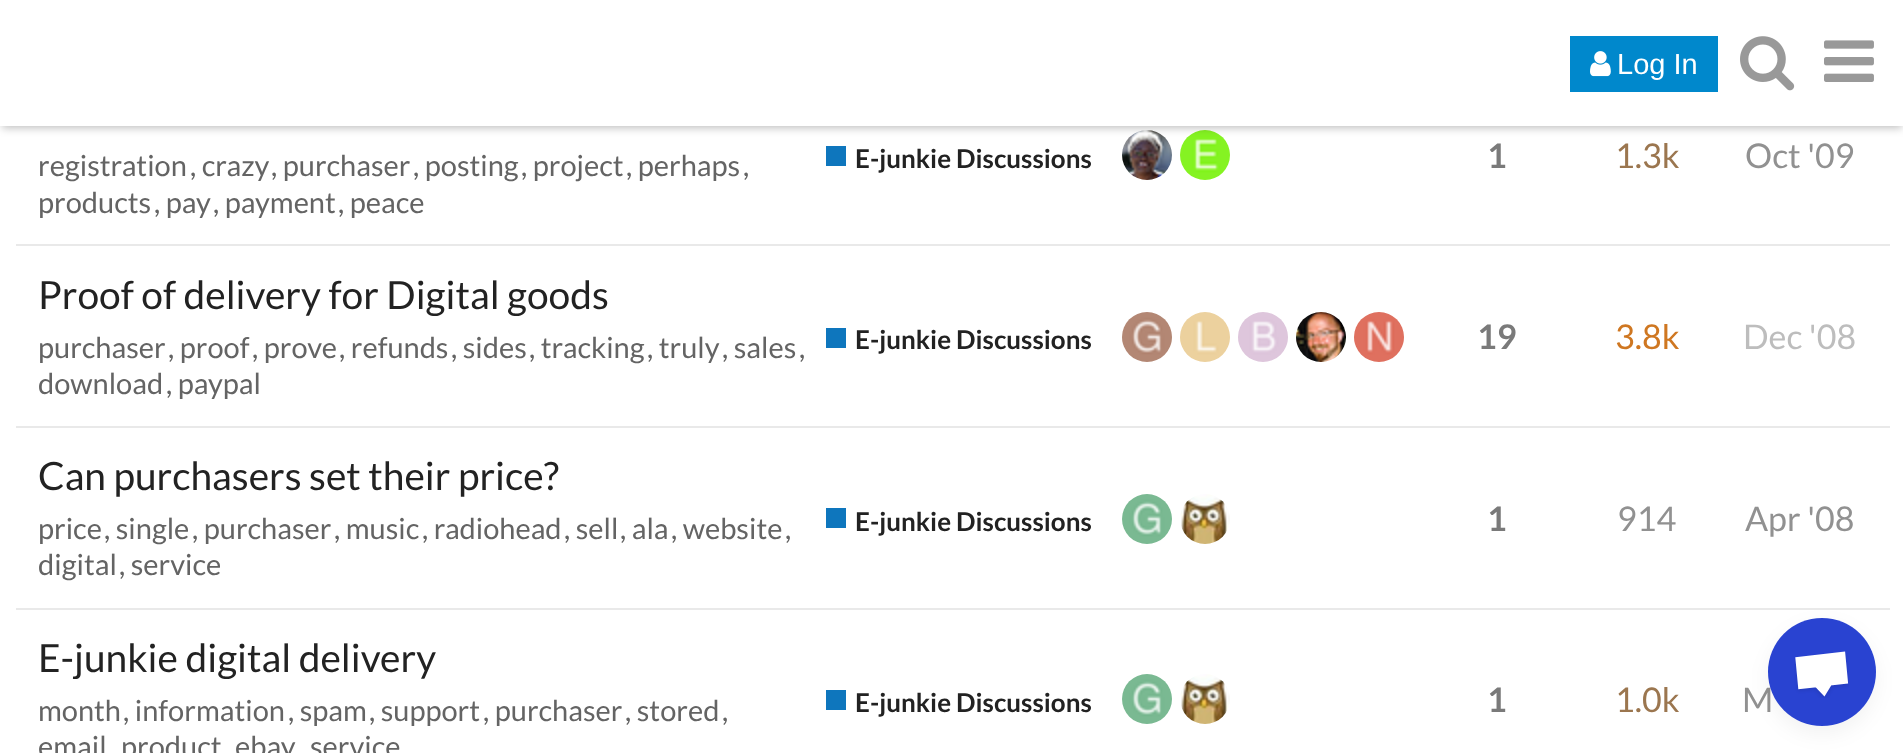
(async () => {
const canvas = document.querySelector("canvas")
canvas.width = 1903
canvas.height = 753
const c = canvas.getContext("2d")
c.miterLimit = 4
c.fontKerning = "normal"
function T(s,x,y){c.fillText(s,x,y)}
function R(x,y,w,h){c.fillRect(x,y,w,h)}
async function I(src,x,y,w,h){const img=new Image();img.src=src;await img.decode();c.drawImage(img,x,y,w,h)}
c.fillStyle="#fff"
R(0,0,1903,753)
await I("4.png",1122,130,50,50)
await I("5.png",1180,130,50,50)
c.fillStyle="#00000040"
c.filter="blur(4px)"
c.beginPath()
c.rect(2,6,1900,122)
c.fill()
c.filter="none"
c.fillStyle="#fff"
R(0,0,1903,126)
c.fillStyle="#08c"
R(1570,36,148,56)
await I("1.png",1590,51,21,26)
c.font="29px Liberation Sans"
c.fillStyle="#fff"
T("Log In",1617,74)
await I("2.png",1740,36,55,55)
await I("3.png",1824,40,50,42)
c.fillStyle="#e9e9e9"
R(16,244,1874,2)
c.font="29px Lato"
c.fillStyle="#646464"
T("registration",38,176)
T(", crazy",190,176)
T(", purchaser",271,176)
T(", posting",413,176)
T(", project",521,176)
T(", perhaps",626,176)
T(",",743,176)
T("products",38,213)
T(", pay",154,213)
T(", payment",213,213)
T(", peace",338,213)
c.fillStyle="#0e76bd"
R(826,146,20,20)
c.font="bold 26px Lato"
c.fillStyle="#222"
T("E-junkie Discussions",855,168)
c.font="bold 34px Lato"
c.fillStyle="#7a7a7a"
T("1",1487,168)
c.font="34px Lato"
c.fillStyle="#9b764f"
T("1.3k",1615,168)
c.fillStyle="#919191"
T("Oct '09",1745,168)
c.fillStyle="#e9e9e9"
R(16,426,1874,2)
c.font="38.9px Lato"
c.fillStyle="#222"
T("Proof of delivery for Digital goods",38,309)
c.font="29px Lato"
c.fillStyle="#646464"
T("purchaser",38,358)
T(", proof",168,358)
T(", prove",252,358)
T(", refunds",339,358)
T(", sides",451,358)
T(", tracking",529,358)
T(", truly",647,358)
T(", sales",722,358)
T(",",799,358)
T("download",38,394)
T(", paypal",166,394)
c.fillStyle="#0e76bd"
R(826,328,20,20)
c.font="bold 26px Lato"
c.fillStyle="#222"
T("E-junkie Discussions",855,349)
await I("6.png",1122,312,50,50)
await I("7.png",1180,312,50,50)
await I("8.png",1238,312,50,50)
await I("9.png",1296,312,50,50)
await I("10.png",1354,312,50,50)
c.font="bold 34px Lato"
c.fillStyle="#7a7a7a"
T("19",1477,349)
c.font="34px Lato"
c.fillStyle="#cf7721"
T("3.8k",1615,349)
c.fillStyle="#bdbdbd"
T("Dec '08",1743,349)
c.fillStyle="#e9e9e9"
R(16,608,1874,2)
c.font="38.9px Lato"
c.fillStyle="#222"
T("Can purchasers set their price?",38,490)
c.font="29px Lato"
c.fillStyle="#646464"
T("price",38,539)
T(", single",104,539)
T(", purchaser",192,539)
T(", music",334,539)
T(", radiohead",422,539)
T(", sell",564,539)
T(", ala",620,539)
T(", website",671,539)
T(",",785,539)
T("digital",38,575)
T(", service",119,575)
c.fillStyle="#0e76bd"
R(826,508,20,20)
c.font="bold 26px Lato"
c.fillStyle="#222"
T("E-junkie Discussions",855,531)
await I("11.png",1122,494,50,50)
await I("12.png",1180,494,50,50)
c.font="bold 34px Lato"
c.fillStyle="#7a7a7a"
T("1",1487,531)
c.font="34px Lato"
c.fillStyle="#919191"
T("914",1617,531)
T("Apr '08",1745,531)
c.font="38.9px Lato"
c.fillStyle="#222"
T("E-junkie digital delivery",38,672)
c.font="29px Lato"
c.fillStyle="#646464"
T("month",38,721)
T(", information",123,721)
T(", spam",288,721)
T(", support",369,721)
T(", purchaser",483,721)
T(", stored",625,721)
T(",",722,721)
T("email",38,757)
T("product",121,757)
T("ebay",235,757)
T("service",310,757)
c.fillStyle="#0e76bd"
R(826,690,20,20)
c.font="bold 26px Lato"
c.fillStyle="#222"
T("E-junkie Discussions",855,712)
await I("11.png",1122,674,50,50)
await I("12.png",1180,674,50,50)
c.font="bold 34px Lato"
c.fillStyle="#7a7a7a"
T("1",1487,712)
c.font="34px Lato"
c.fillStyle="#9b764f"
T("1.0k",1615,712)
c.fillStyle="#919191"
T("M",1742,712)
c.fillStyle="#0000000d"
c.filter="blur(10px)"
c.beginPath()
c.roundRect(1768,626,108,108,54)
c.fill()
c.filter="none"
c.fillStyle="#2943d1"
c.beginPath()
c.arc(1822,672,54,0,7)
c.fill()
await I("13.png",1794,651,55,47)
})()
